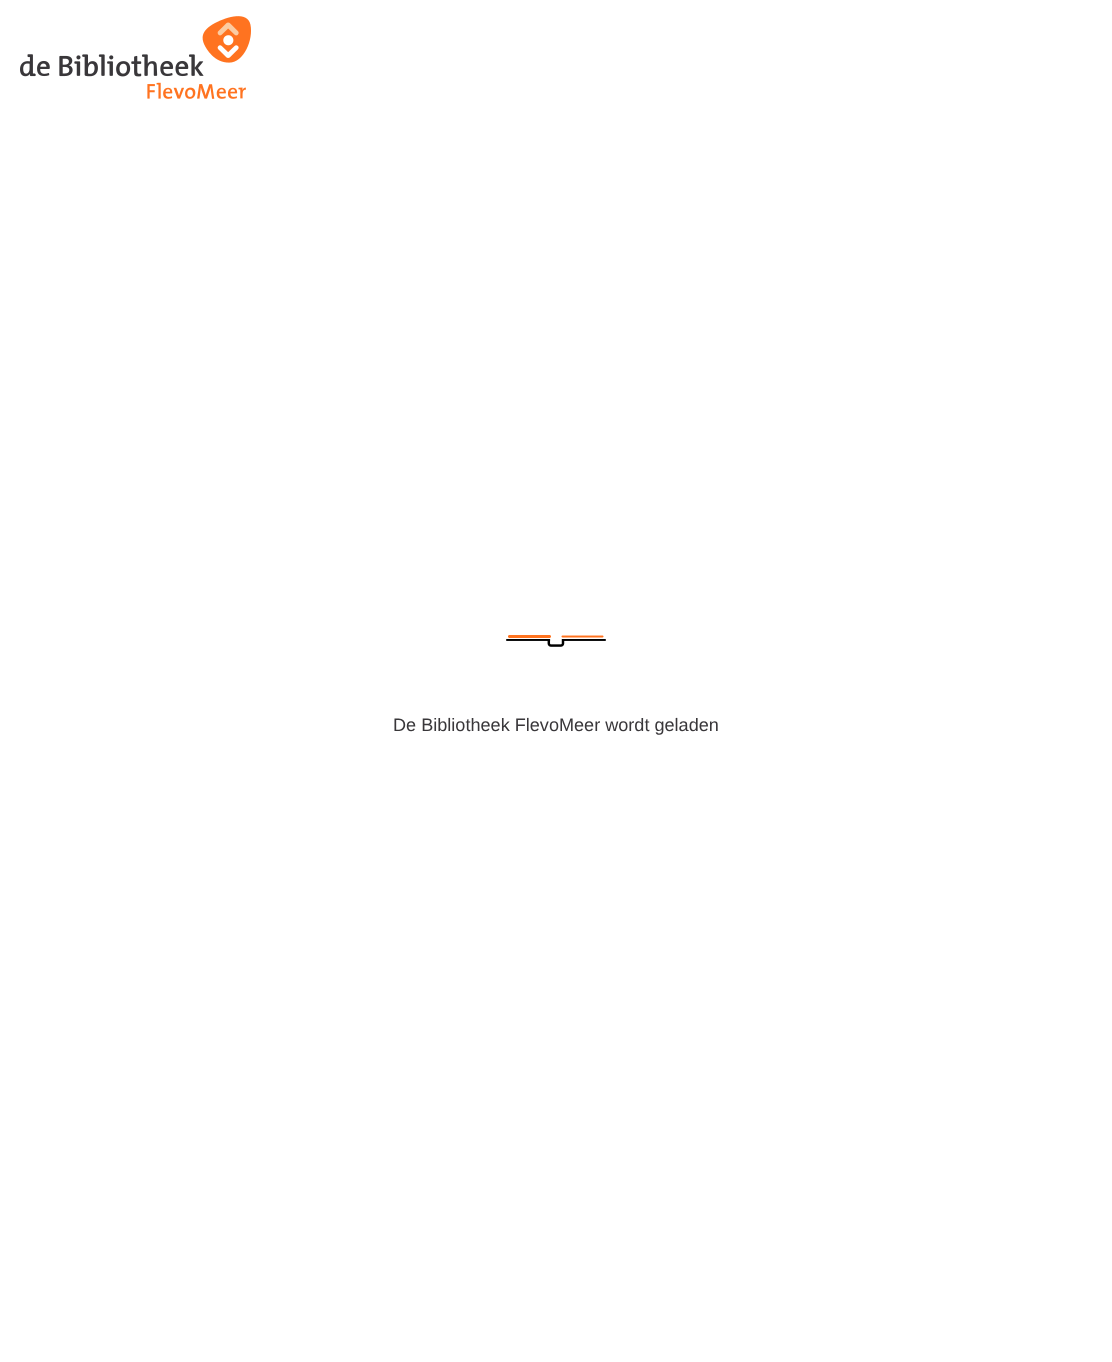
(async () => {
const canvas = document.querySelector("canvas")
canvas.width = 1112
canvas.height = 1362
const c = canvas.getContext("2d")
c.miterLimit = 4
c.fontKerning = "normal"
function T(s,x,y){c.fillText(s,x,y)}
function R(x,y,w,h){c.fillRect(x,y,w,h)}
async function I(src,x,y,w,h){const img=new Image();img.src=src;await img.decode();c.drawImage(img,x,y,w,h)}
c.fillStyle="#fff"
R(0,0,1112,1362)
await I("1.png",20,16,231,83)
await I("2.png",506,635,100,12)
c.font="18.1px Liberation Sans"
c.fillStyle="#39373a"
T("De Bibliotheek FlevoMeer wordt geladen",393,731)
})()
